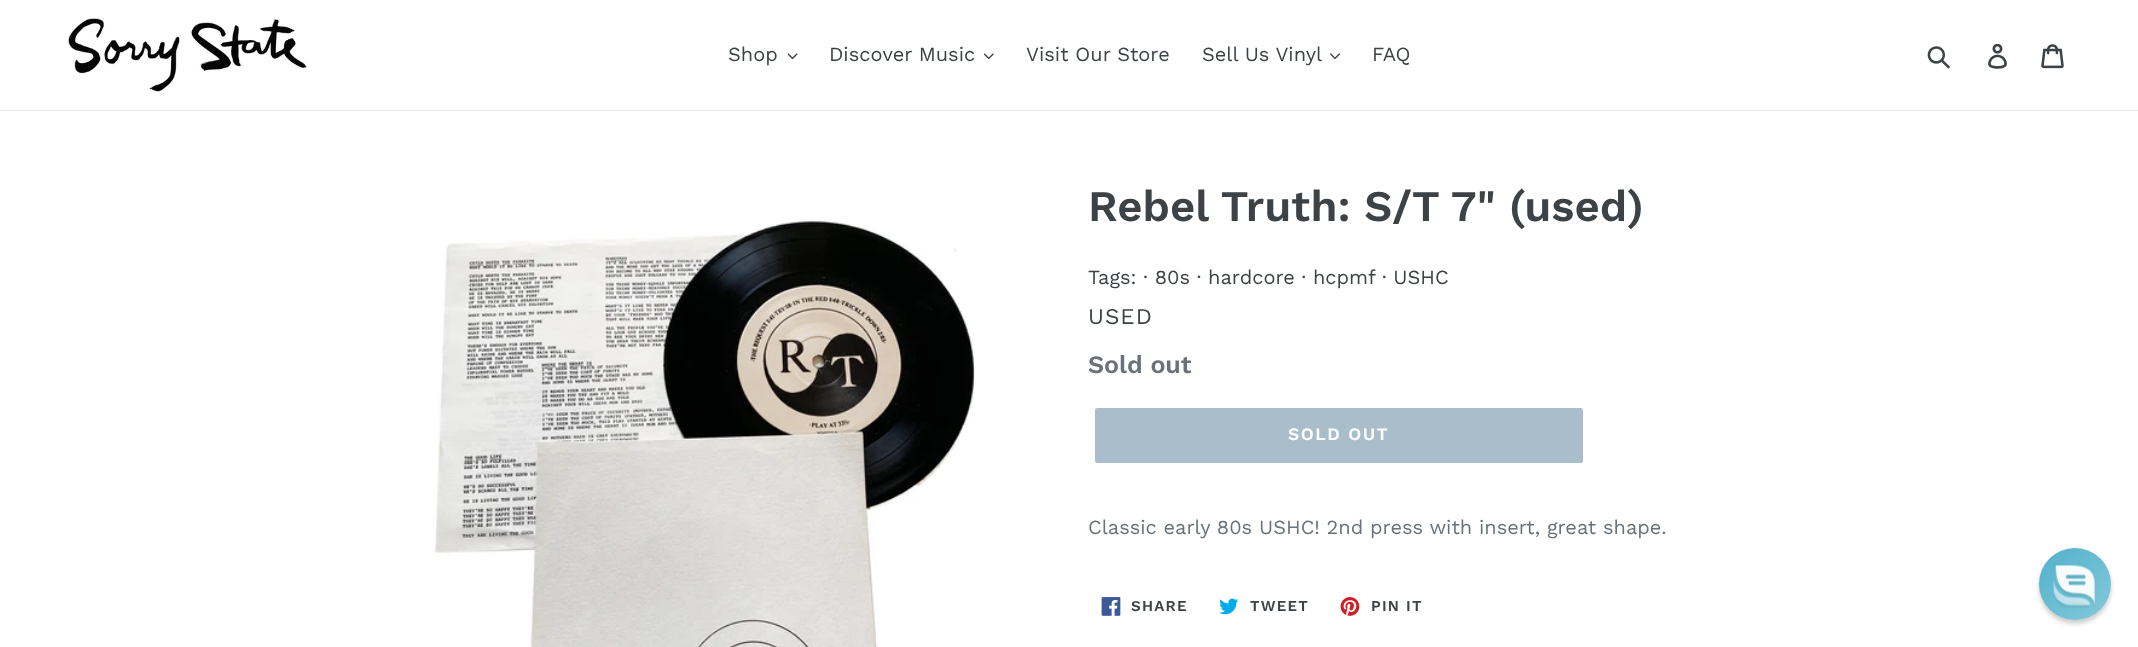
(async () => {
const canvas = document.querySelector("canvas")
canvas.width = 2138
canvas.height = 647
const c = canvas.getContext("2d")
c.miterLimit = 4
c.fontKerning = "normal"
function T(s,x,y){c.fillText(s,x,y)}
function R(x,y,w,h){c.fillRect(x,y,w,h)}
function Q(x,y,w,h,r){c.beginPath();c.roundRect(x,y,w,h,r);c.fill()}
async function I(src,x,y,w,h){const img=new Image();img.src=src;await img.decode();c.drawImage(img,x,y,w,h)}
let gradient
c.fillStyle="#fff"
R(0,0,2138,647)
c.fillStyle="#e8e9eb"
R(0,110,2138,1)
await I("1.png",68,18,239,74)
c.font="20px Work Sans"
c.fillStyle="#3d4246"
T("Shop",728,61)
await I("2.png",788,53,10,7)
T("Discover Music",829,61)
await I("3.png",984,53,10,7)
T("Visit Our Store",1026,61)
T("Sell Us Vinyl",1202,61)
await I("4.png",1330,53,10,6)
T("FAQ",1372,61)
await I("5.png",1927,46,23,23)
await I("6.png",1988,44,19,25)
await I("7.png",2041,44,23,25)
await I("8.png",434,219,541,428)
c.font="600 43.75px Work Sans"
T("Rebel Truth: S/T 7\" (used)",1088,221)
c.font="20px Work Sans"
T("Tags: · 80s · hardcore · hcpmf",1088,284)
T("· USHC",1382,284)
c.letterSpacing="1px"
c.font="22.5px Work Sans"
T("USED",1088,324)
c.letterSpacing="0px"
c.font="600 25px Work Sans"
c.fillStyle="#69727b"
T("Sold out",1088,373)
c.fillStyle="#aabdcb"
Q(1095,408,488,55,2.5)
c.letterSpacing="1.5px"
c.font="600 17.5px Work Sans"
c.fillStyle="#fff"
T("SOLD OUT",1288,440)
c.letterSpacing="0px"
c.font="20px Work Sans"
c.fillStyle="#69727b"
T("Classic early 80s USHC! 2nd press with insert, great shape.",1088,534)
await I("9.png",1101,597,20,19)
c.letterSpacing="1.25px"
c.font="600 15px Work Sans"
c.fillStyle="#3d4246"
T("SHARE",1131,611)
await I("10.png",1219,598,20,17)
T("TWEET",1250,611)
await I("11.png",1340,597,20,19)
T("PIN IT",1371,611)
c.fillStyle="#0d0d0d33"
c.filter="blur(2px)"
c.beginPath()
c.roundRect(2039,551,72,73,36)
c.fill()
c.filter="none"
gradient = c.createLinearGradient(2039,548,2111,620)
gradient.addColorStop(0,"#51b1cb")
gradient.addColorStop(1,"#85c9db")
c.fillStyle = gradient
c.beginPath()
c.arc(2075,584,36,0,7)
c.fill()
await I("12.png",2053,565,42,43)
})()
